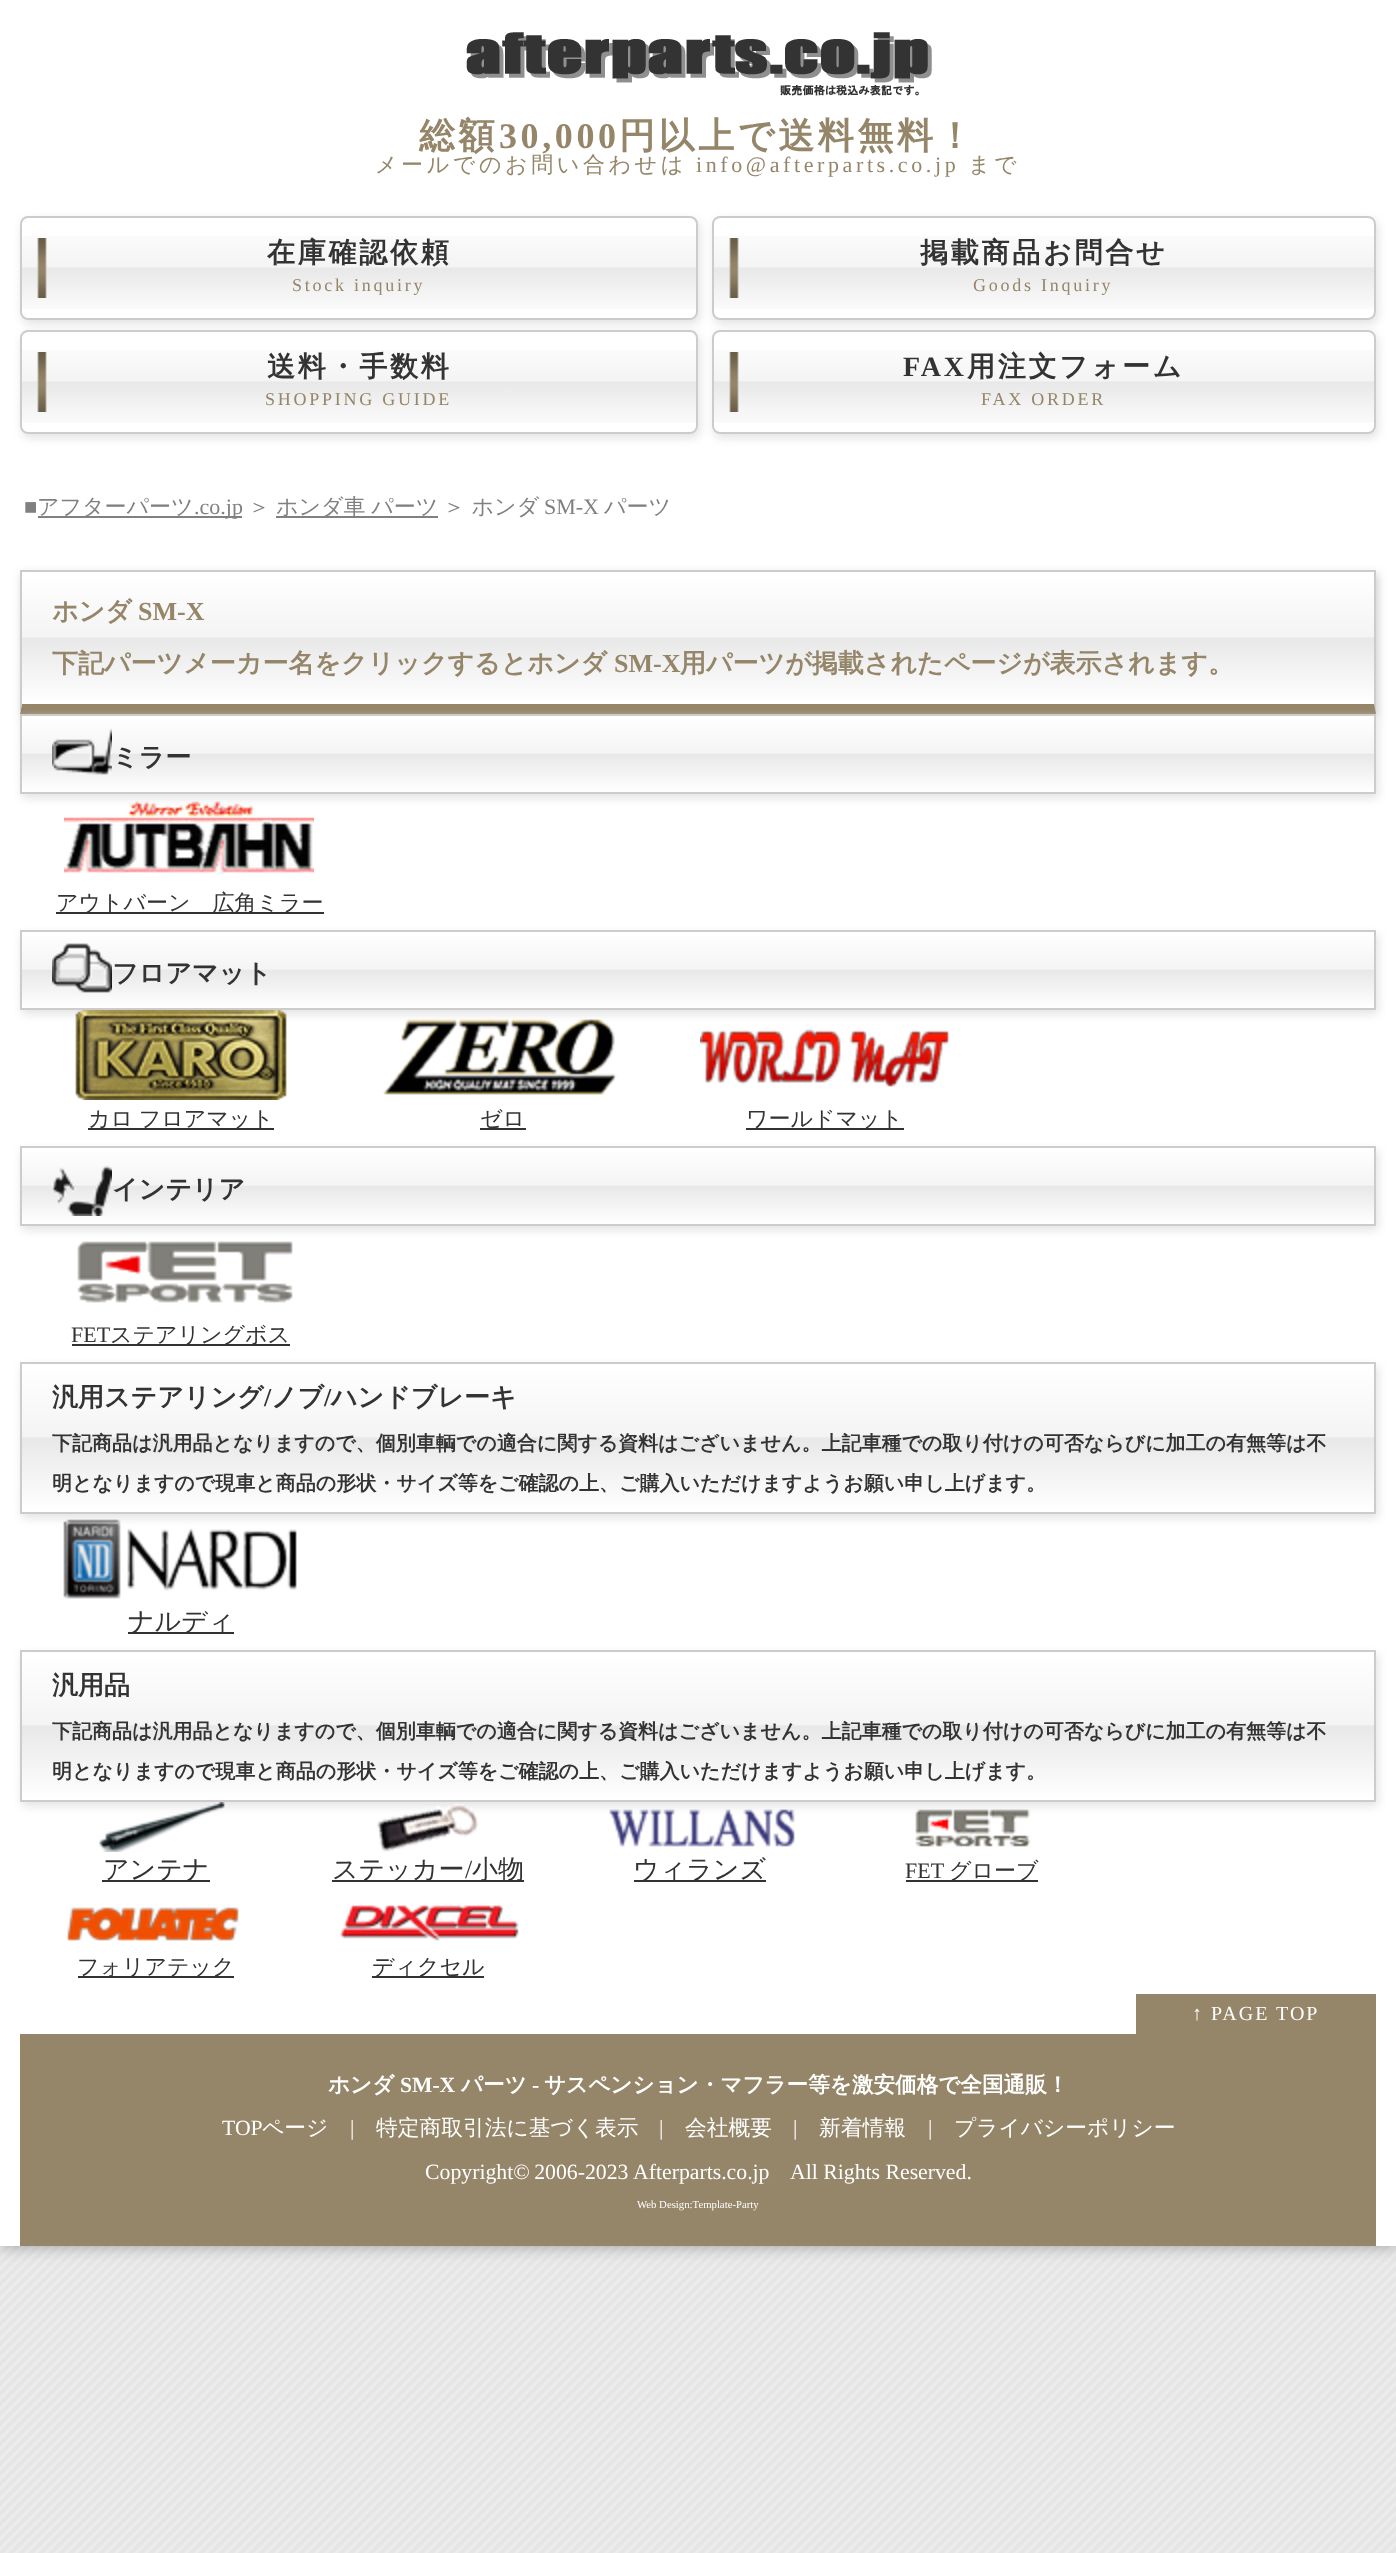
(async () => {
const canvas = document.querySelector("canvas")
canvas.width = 1396
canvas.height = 2553
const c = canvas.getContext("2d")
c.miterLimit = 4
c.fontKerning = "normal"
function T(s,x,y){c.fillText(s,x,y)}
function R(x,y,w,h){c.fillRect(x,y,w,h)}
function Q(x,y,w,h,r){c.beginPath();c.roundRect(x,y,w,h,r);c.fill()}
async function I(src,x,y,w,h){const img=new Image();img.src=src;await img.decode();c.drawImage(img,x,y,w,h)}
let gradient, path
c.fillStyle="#fff"
R(0,0,1396,2553)
await I("1.png",0,2246,1396,307)
c.fillStyle="#999"
c.filter="blur(8px)"
c.beginPath()
c.rect(0,0,1396,2246)
c.fill()
c.filter="none"
c.fillStyle="#fff"
R(0,0,1396,2246)
await I("2.png",466,32,466,64)
c.letterSpacing="3.6px"
c.font="bold 36px WenQuanYi Zen Hei"
c.fillStyle="#958569"
T("総額",419,148)
c.font="bold 36px Liberation Serif"
T("30,000",499,148)
c.font="bold 36px WenQuanYi Zen Hei"
T("円以上で送料無料！",619,148)
c.font="500 22px WenQuanYi Zen Hei"
T("メールでのお問い合わせは",375,172)
c.font="22px Liberation Serif"
T("info@afterparts.co.jp",696,172)
c.font="500 22px WenQuanYi Zen Hei"
T("まで",968,172)
c.fillStyle="#e2e2e2"
c.filter="blur(5px)"
c.beginPath()
c.roundRect(22,220,678,104,8)
c.fill()
c.filter="none"
c.fillStyle="#fff"
Q(20,216,678,104,8)
await I("3.png",22,236,674,73)
c.beginPath()
c.roundRect(21,217,676,102,7)
c.strokeStyle="#ccc"
c.lineWidth=2
c.stroke()
c.letterSpacing="2.75px"
c.font="bold 28px WenQuanYi Zen Hei"
c.fillStyle="#333"
T("在庫確認依頼",267,262)
c.font="18px Liberation Serif"
c.fillStyle="#958569"
T("Stock inquiry",292,291)
c.fillStyle="#e2e2e2"
c.filter="blur(5px)"
c.beginPath()
c.roundRect(714,220,664,104,8)
c.fill()
c.filter="none"
c.fillStyle="#fff"
Q(712,216,664,104,8)
await I("4.png",714,236,660,73)
c.beginPath()
c.roundRect(713,217,662,102,7)
c.stroke()
c.font="bold 28px WenQuanYi Zen Hei"
c.fillStyle="#333"
T("掲載商品お問合せ",920,262)
c.font="18px Liberation Serif"
c.fillStyle="#958569"
T("Goods Inquiry",973,291)
c.fillStyle="#e2e2e2"
c.filter="blur(5px)"
c.beginPath()
c.roundRect(22,334,678,104,8)
c.fill()
c.filter="none"
c.fillStyle="#fff"
Q(20,330,678,104,8)
await I("5.png",22,350,674,73)
c.beginPath()
c.roundRect(21,331,676,102,7)
c.stroke()
c.font="bold 28px WenQuanYi Zen Hei"
c.fillStyle="#333"
T("送料・手数料",267,376)
c.font="18px Liberation Serif"
c.fillStyle="#958569"
T("SHOPPING GUIDE",265,405)
c.fillStyle="#e2e2e2"
c.filter="blur(5px)"
c.beginPath()
c.roundRect(714,334,664,104,8)
c.fill()
c.filter="none"
c.fillStyle="#fff"
Q(712,330,664,104,8)
await I("6.png",714,350,660,73)
c.beginPath()
c.roundRect(713,331,662,102,7)
c.stroke()
c.font="bold 28px Liberation Serif"
c.fillStyle="#333"
T("FAX",903,376)
c.font="bold 28px WenQuanYi Zen Hei"
T("用注文フォーム",967,376)
c.font="18px Liberation Serif"
c.fillStyle="#958569"
T("FAX ORDER",981,405)
c.letterSpacing="0px"
c.font="22px Liberation Serif"
c.fillStyle="#808080"
T("■",24,514)
R(38,516,204,2)
c.font="500 22px WenQuanYi Zen Hei"
T("アフターパーツ",37,514)
c.font="22px Liberation Serif"
T(".co.jp",194,514)
c.font="500 22px WenQuanYi Zen Hei"
T("＞",248,514)
R(276,516,162,2)
c.wordSpacing="-1px"
T("ホンダ車 パーツ",276,514)
c.wordSpacing="0px"
T("＞ ホンダ",443,514)
c.font="22px Liberation Serif"
T("SM-X",544,514)
c.font="500 22px WenQuanYi Zen Hei"
T("パーツ",604,514)
c.fillStyle="#ccc"
c.filter="blur(5px)"
c.beginPath()
c.rect(22,574,1356,144)
c.fill()
c.filter="none"
gradient = c.createLinearGradient(698,572,698,704)
gradient.addColorStop(0,"#fff")
gradient.addColorStop(.49,"#f4f4f4")
gradient.addColorStop(.5,"#e8e8e8")
gradient.addColorStop(1,"#fff")
c.fillStyle = gradient
R(22,572,1352,132)
c.fillStyle="#ccc"
R(20,570,1356,2)
path = new Path2D("M1376 570v144l-2-10v-132z")
c.fill(path)
c.fillStyle="#958569"
path = new Path2D("M1376 714h-1356l2-10h1352z")
c.fill(path)
c.fillStyle="#ccc"
path = new Path2D("M20 714v-144l2 2v132z")
c.fill(path)
c.font="bold 26px WenQuanYi Zen Hei"
c.fillStyle="#958569"
T("ホンダ",52,620)
c.font="bold 26px Liberation Serif"
T("SM-X",138,620)
c.font="bold 26px WenQuanYi Zen Hei"
T("下記パーツメーカー名をクリックするとホンダ",52,672)
c.font="bold 26px Liberation Serif"
T("SM-X",614,672)
c.font="bold 26px WenQuanYi Zen Hei"
T("用パーツが掲載されたページが表示されます。",680,672)
c.fillStyle="#e2e2e2"
c.filter="blur(5px)"
c.beginPath()
c.rect(22,718,1356,80)
c.fill()
c.filter="none"
gradient = c.createLinearGradient(698,716,698,792)
gradient.addColorStop(0,"#fff")
gradient.addColorStop(.49,"#f4f4f4")
gradient.addColorStop(.5,"#e8e8e8")
gradient.addColorStop(1,"#fff")
c.fillStyle = gradient
R(22,716,1352,76)
c.strokeRect(21,715,1354,78)
await I("7.png",52,728,60,47)
c.fillStyle="#333"
T("ミラー",112,766)
await I("8.png",64,800,250,75)
R(56,912,268,2)
c.font="500 22px WenQuanYi Zen Hei"
T("アウトバーン　広角ミラー",56,910)
c.fillStyle="#e2e2e2"
c.filter="blur(5px)"
c.beginPath()
c.rect(22,934,1356,80)
c.fill()
c.filter="none"
gradient = c.createLinearGradient(698,932,698,1008)
gradient.addColorStop(0,"#fff")
gradient.addColorStop(.49,"#f4f4f4")
gradient.addColorStop(.5,"#e8e8e8")
gradient.addColorStop(1,"#fff")
c.fillStyle = gradient
R(22,932,1352,76)
c.strokeRect(21,931,1354,78)
await I("9.png",52,943,60,50)
c.font="bold 26px WenQuanYi Zen Hei"
c.fillStyle="#333"
T("フロアマット",112,982)
await I("10.png",75,1010,212,90)
R(88,1128,186,2)
c.wordSpacing="-1px"
c.font="500 22px WenQuanYi Zen Hei"
T("カロ フロアマット",88,1126)
await I("11.png",383,1019,234,76)
c.wordSpacing="0px"
T("ゼロ",480,1126)
R(480,1128,46,2)
await I("12.png",700,1029,249,58)
R(746,1128,158,2)
T("ワールドマット",746,1126)
c.fillStyle="#e2e2e2"
c.filter="blur(5px)"
c.beginPath()
c.rect(22,1150,1356,80)
c.fill()
c.filter="none"
gradient = c.createLinearGradient(698,1148,698,1224)
gradient.addColorStop(0,"#fff")
gradient.addColorStop(.49,"#f4f4f4")
gradient.addColorStop(.5,"#e8e8e8")
gradient.addColorStop(1,"#fff")
c.fillStyle = gradient
R(22,1148,1352,76)
c.strokeRect(21,1147,1354,78)
await I("13.png",52,1165,60,51)
c.font="bold 26px WenQuanYi Zen Hei"
c.fillStyle="#333"
T("インテリア",112,1198)
await I("14.png",77,1241,216,62)
c.font="22px Liberation Serif"
T("FET",71,1342)
R(72,1344,218,2)
c.font="500 22px WenQuanYi Zen Hei"
T("ステアリングボス",110,1342)
c.fillStyle="#e2e2e2"
c.filter="blur(5px)"
c.beginPath()
c.rect(22,1366,1356,152)
c.fill()
c.filter="none"
gradient = c.createLinearGradient(698,1364,698,1512)
gradient.addColorStop(0,"#fff")
gradient.addColorStop(.49,"#f4f4f4")
gradient.addColorStop(.5,"#e8e8e8")
gradient.addColorStop(1,"#fff")
c.fillStyle = gradient
R(22,1364,1352,148)
c.strokeRect(21,1363,1354,150)
c.font="bold 26px WenQuanYi Zen Hei"
c.fillStyle="#333"
T("汎用ステアリング",52,1406)
c.font="bold 26px Liberation Serif"
T("/",264,1406)
c.font="bold 26px WenQuanYi Zen Hei"
T("ノブ",271,1406)
c.font="bold 26px Liberation Serif"
T("/",324,1406)
c.font="bold 26px WenQuanYi Zen Hei"
T("ハンドブレーキ",331,1406)
c.font="bold 20px WenQuanYi Zen Hei"
T("下記商品は汎用品となりますので、個別車輌での適合に関する資料はございません。上記車種での取り付けの可否ならびに加工の有無等は不",52,1450)
T("明となりますので現車と商品の形状・サイズ等をご確認の上、ご購入いただけますようお願い申し上げます。",52,1490)
await I("15.png",63,1519,234,80)
R(128,1632,106,2)
c.font="500 26px WenQuanYi Zen Hei"
T("ナルディ",128,1630)
c.fillStyle="#e2e2e2"
c.filter="blur(5px)"
c.beginPath()
c.rect(22,1654,1356,152)
c.fill()
c.filter="none"
gradient = c.createLinearGradient(698,1652,698,1800)
gradient.addColorStop(0,"#fff")
gradient.addColorStop(.49,"#f4f4f4")
gradient.addColorStop(.5,"#e8e8e8")
gradient.addColorStop(1,"#fff")
c.fillStyle = gradient
R(22,1652,1352,148)
c.strokeRect(21,1651,1354,150)
c.font="bold 26px WenQuanYi Zen Hei"
c.fillStyle="#333"
T("汎用品",52,1694)
c.font="bold 20px WenQuanYi Zen Hei"
T("下記商品は汎用品となりますので、個別車輌での適合に関する資料はございません。上記車種での取り付けの可否ならびに加工の有無等は不",52,1738)
T("明となりますので現車と商品の形状・サイズ等をご確認の上、ご購入いただけますようお願い申し上げます。",52,1778)
await I("16.png",99,1802,126,50)
R(102,1880,108,2)
c.font="500 26px WenQuanYi Zen Hei"
T("アンテナ",103,1878)
await I("17.png",377,1803,102,49)
R(332,1880,192,2)
T("ステッカー",332,1878)
c.font="26px Liberation Serif"
T("/",465,1878)
c.font="500 26px WenQuanYi Zen Hei"
T("小物",472,1878)
await I("18.png",609,1809,186,38)
R(634,1880,132,2)
T("ウィランズ",633,1878)
await I("19.png",915,1809,116,38)
c.font="22px Liberation Serif"
T("FET",905,1878)
R(906,1880,132,2)
c.font="500 22px WenQuanYi Zen Hei"
T("グローブ",949,1878)
await I("20.png",67,1907,172,34)
R(78,1976,156,2)
T("フォリアテック",77,1974)
await I("21.png",339,1905,180,36)
R(372,1976,112,2)
T("ディクセル",372,1974)
c.fillStyle="#958569"
R(1136,1994,240,40)
c.letterSpacing="2px"
c.font="20px Liberation Serif"
c.fillStyle="#fff"
T("↑ PAGE TOP",1192,2020)
c.fillStyle="#958569"
R(20,2034,1356,212)
c.letterSpacing="0px"
c.font="bold 21.6px WenQuanYi Zen Hei"
c.fillStyle="#fff"
T("ホンダ",328,2092)
c.font="bold 21.6px Liberation Serif"
T("SM-X",400,2092)
c.font="bold 21.6px WenQuanYi Zen Hei"
T("パーツ",461,2092)
c.font="bold 21.6px Liberation Serif"
T("-",532,2092)
c.font="bold 21.6px WenQuanYi Zen Hei"
T("サスペンション・マフラー等を激安価格で全国通販！",544,2092)
c.font="21.75px Liberation Serif"
T("TOP",222,2135)
c.font="500 21.75px WenQuanYi Zen Hei"
T("ページ",262,2135)
c.font="21.75px Liberation Serif"
T("|",350,2135)
c.font="500 21.75px WenQuanYi Zen Hei"
T("特定商取引法に基づく表示",376,2135)
c.font="21.75px Liberation Serif"
T("|",659,2135)
c.font="500 21.75px WenQuanYi Zen Hei"
T("会社概要",685,2135)
c.font="21.75px Liberation Serif"
T("|",793,2135)
c.font="500 21.75px WenQuanYi Zen Hei"
T("新着情報",819,2135)
c.font="21.75px Liberation Serif"
T("|",928,2135)
c.font="500 21.75px WenQuanYi Zen Hei"
T("プライバシーポリシー",954,2135)
c.wordSpacing="-1px"
c.font="21.75px Liberation Serif"
T("Copyright© 2006-2023",425,2179)
c.wordSpacing="0px"
T("Afterparts.co.jp",633,2179)
T("All Rights Reserved.",790,2179)
c.font="10.75px Liberation Serif"
T("Web Design:Template-Party",637,2208)
})()
